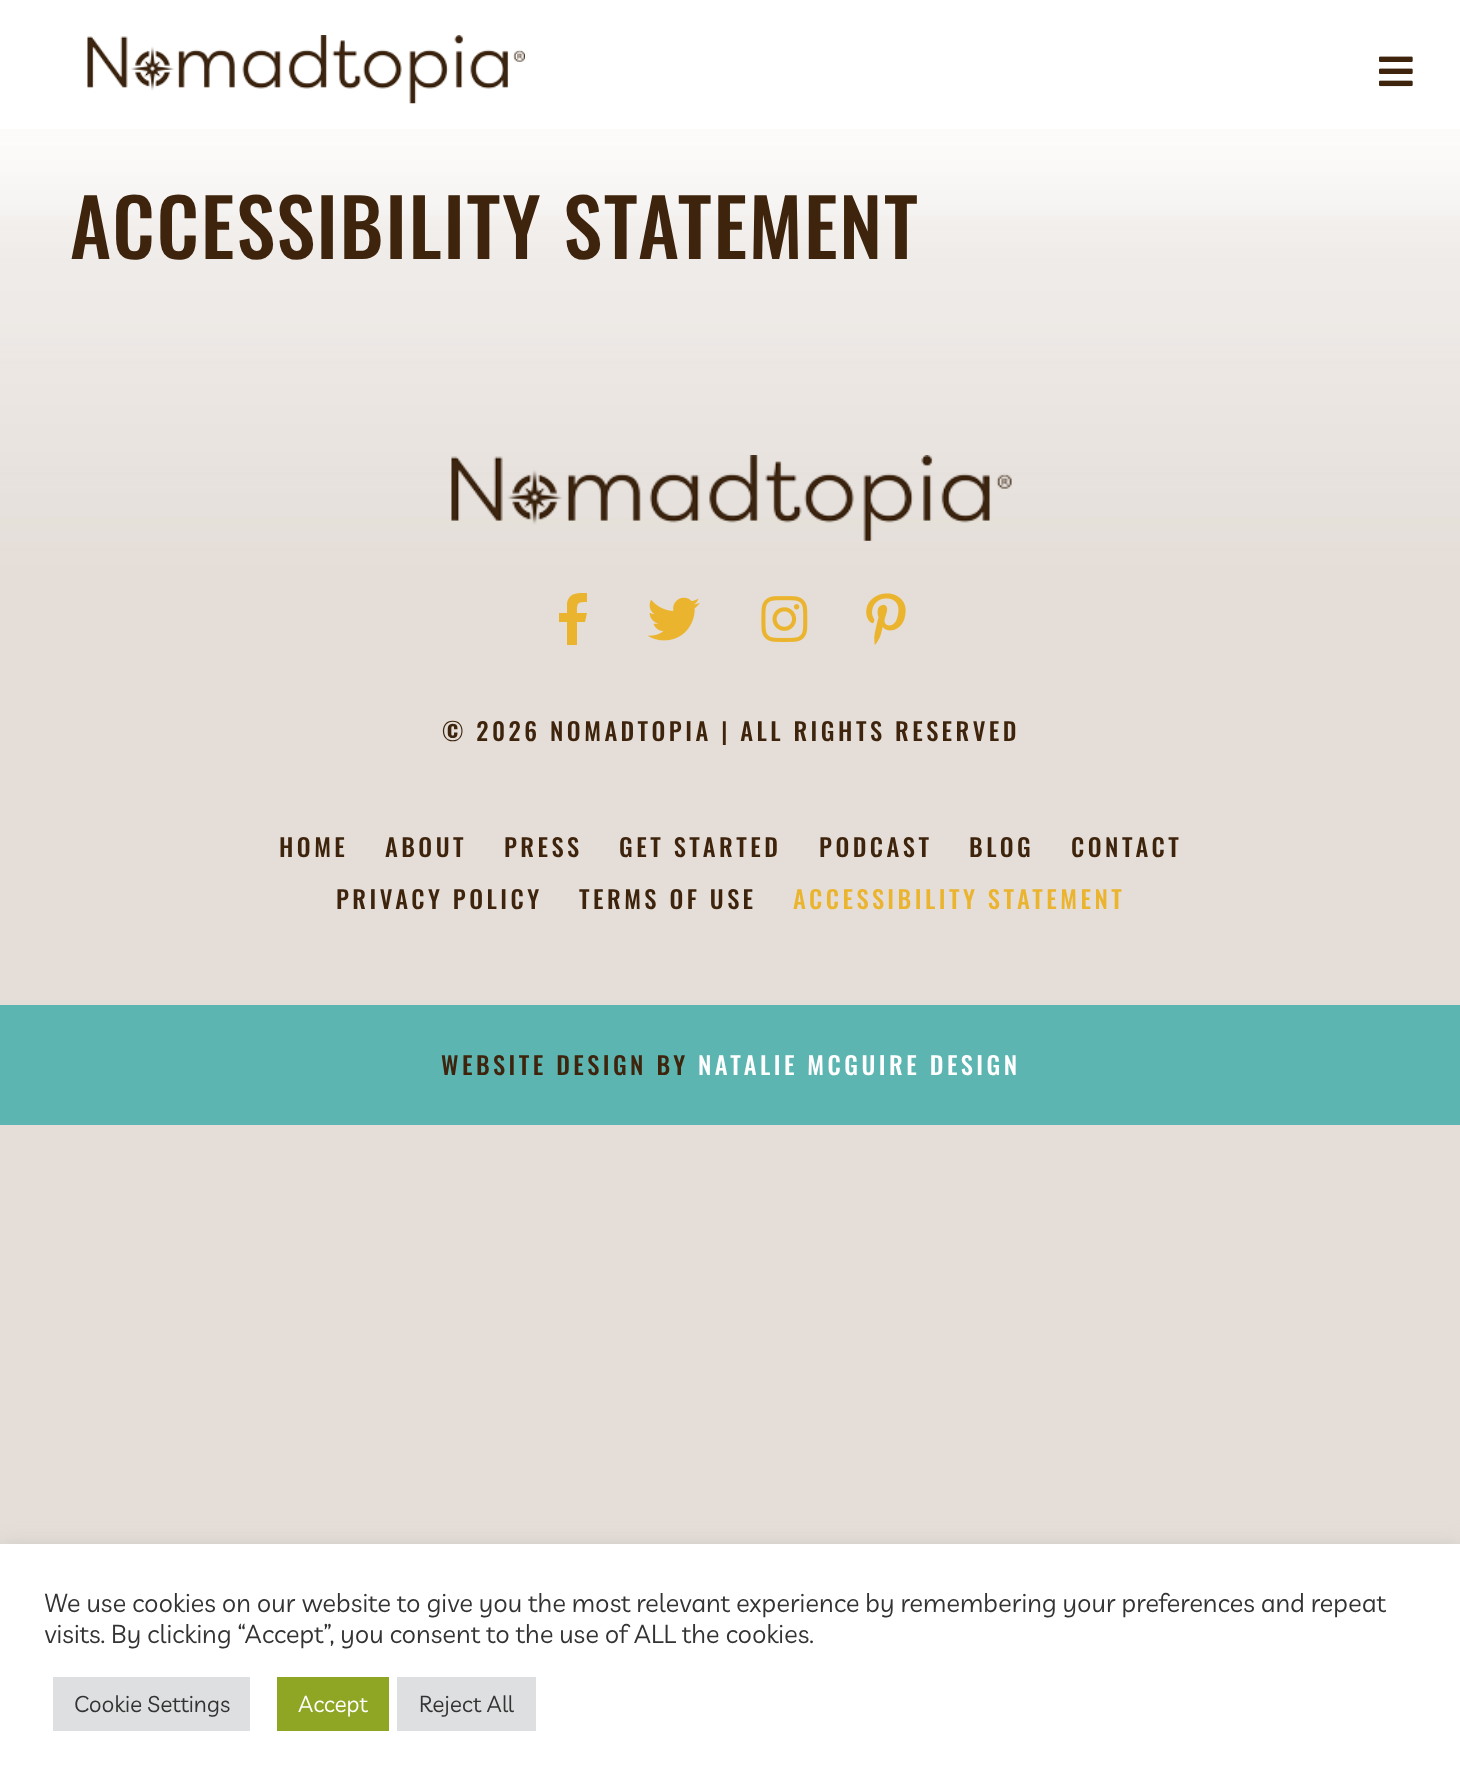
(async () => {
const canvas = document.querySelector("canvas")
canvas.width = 1460
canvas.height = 1783
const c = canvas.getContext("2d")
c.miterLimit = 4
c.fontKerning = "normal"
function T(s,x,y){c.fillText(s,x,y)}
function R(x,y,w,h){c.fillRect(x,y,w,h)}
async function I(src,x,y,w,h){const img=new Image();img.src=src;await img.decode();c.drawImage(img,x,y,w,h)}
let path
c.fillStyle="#fff"
R(0,0,1460,1783)
await I("1.png",0,129,1460,1415)
await I("2.png",87,35,438,69)
await I("3.png",1379,56,34,31)
c.letterSpacing="1.75px"
c.font="500 78.75px Oswald"
c.fillStyle="#3e240d"
T("ACCESSIBILITY STATEMENT",70,259)
await I("4.png",451,455,561,86)
c.fillStyle="#ebb42f"
path = new Path2D("M585 622h-8v23h-10v-23h-8v-9h8v-10c2-11 12-10 20-10v9c-10 0-10 1-10 11h10z")
c.fill(path)
await I("5.png",647,597,53,44)
await I("6.png",761,596,47,46)
await I("7.png",866,593,40,52)
c.letterSpacing="3.5px"
c.font="500 24.5px Oswald"
c.fillStyle="#3e240d"
T("© 2026 NOMADTOPIA | ALL RIGHTS RESERVED",442,741)
T("HOME",279,857)
T("ABOUT",385,857)
T("PRESS",504,857)
T("GET STARTED",619,857)
T("PODCAST",819,857)
T("BLOG",969,857)
T("CONTACT",1071,857)
T("PRIVACY POLICY",336,909)
T("TERMS OF USE",579,909)
c.fillStyle="#ebb42f"
T("ACCESSIBILITY STATEMENT",793,909)
c.fillStyle="#5cb5b1"
R(0,1005,1460,120)
c.fillStyle="#3e240d"
T("WEBSITE DESIGN BY",441,1075)
c.fillStyle="#fff"
T("NATALIE MCGUIRE DESIGN",698,1075)
c.fillStyle="#acabab4d"
c.filter="blur(9px)"
c.beginPath()
c.rect(0,1542,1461,240)
c.fill()
c.filter="none"
c.fillStyle="#fff"
R(0,1544,1460,239)
c.letterSpacing="0px"
c.font="25.67px Livvic"
c.fillStyle="#333"
T("We use cookies on our website to give you the most relevant experience by remembering your preferences and repeat",44,1612)
T("visits. By clicking “Accept”, you consent to the use of ALL the cookies.",44,1643)
c.fillStyle="#dedfe0"
R(53,1677,197,54)
c.font="22.75px Livvic"
c.fillStyle="#333"
T("Cookie Settings",74,1712)
c.fillStyle="#8fa624"
R(277,1677,112,54)
c.fillStyle="#fff"
T("Accept",298,1712)
c.fillStyle="#dedfe0"
R(397,1677,139,54)
c.fillStyle="#333"
T("Reject All",419,1712)
})()
